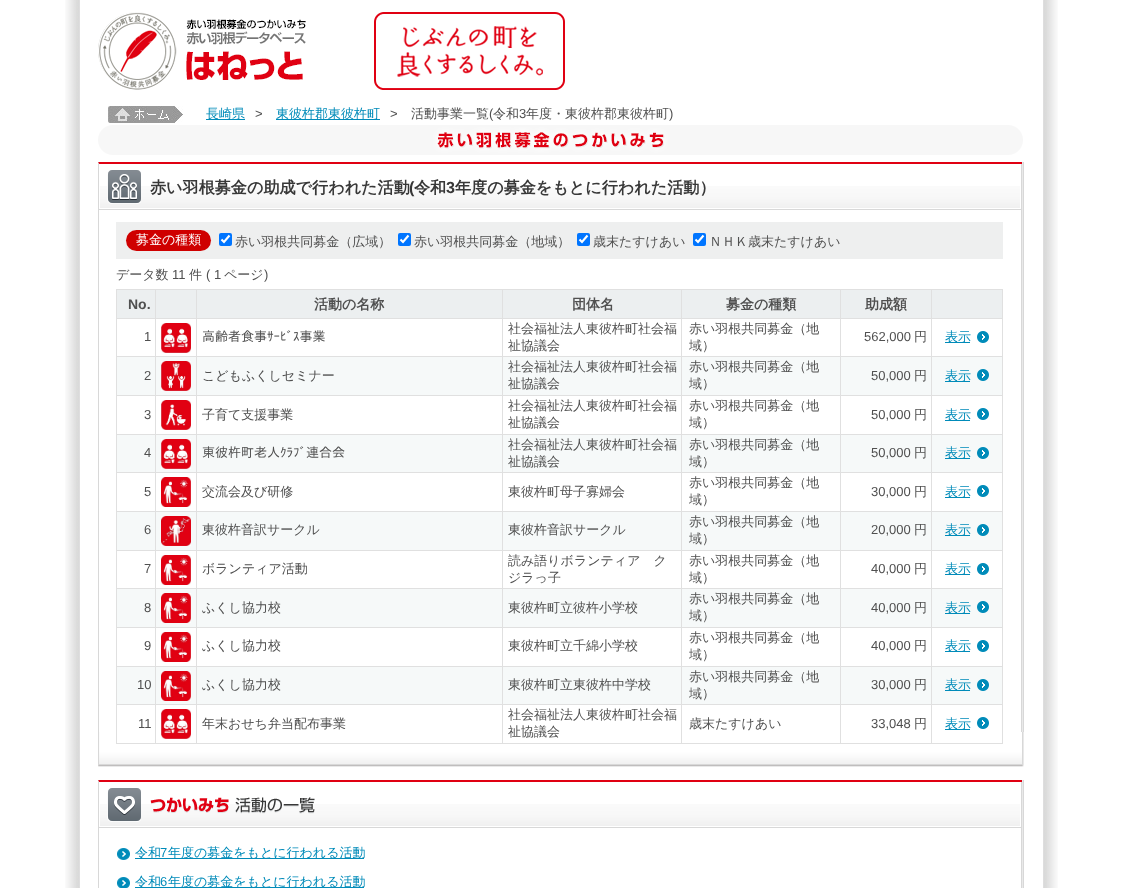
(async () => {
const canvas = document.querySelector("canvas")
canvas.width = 1121
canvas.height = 888
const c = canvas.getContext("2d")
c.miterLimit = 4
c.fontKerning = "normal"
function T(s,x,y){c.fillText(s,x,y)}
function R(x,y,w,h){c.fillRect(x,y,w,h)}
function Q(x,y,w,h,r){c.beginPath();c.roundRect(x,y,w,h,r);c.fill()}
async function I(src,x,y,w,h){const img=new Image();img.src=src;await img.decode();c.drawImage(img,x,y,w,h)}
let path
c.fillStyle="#fff"
R(0,0,1121,888)
await I("1.png",65,0,993,888)
await I("2.png",98,12,208,78)
await I("3.png",374,12,191,78)
await I("4.png",108,106,75,17)
c.fillStyle="#008bb9"
R(206,119,39,1)
c.font="500 13px WenQuanYi Zen Hei"
T("長崎県",206,118)
c.font="13px Liberation Sans"
c.fillStyle="#505050"
T(">",255,118)
c.fillStyle="#008bb9"
R(276,119,104,1)
c.font="500 13px WenQuanYi Zen Hei"
T("東彼杵郡東彼杵町",276,118)
c.font="13px Liberation Sans"
c.fillStyle="#505050"
T(">",390,118)
c.font="500 13px WenQuanYi Zen Hei"
T("活動事業一覧",411,118)
c.font="13px Liberation Sans"
T("(",489,118)
c.font="500 13px WenQuanYi Zen Hei"
T("令和",493,118)
c.font="13px Liberation Sans"
T("3",519,118)
c.font="500 13px WenQuanYi Zen Hei"
T("年度・東彼杵郡東彼杵町",526,118)
c.font="13px Liberation Sans"
T(")",669,118)
await I("5.png",98,125,925,30)
await I("6.png",98,162,926,570)
await I("7.png",98,732,926,35)
c.fillStyle="#e00012"
path = new Path2D("M98 162h924v2h-923z")
c.fill(path)
c.fillStyle="#d8d8d8"
R(98,209,924,1)
path = new Path2D("M98 210v-48l1 2v45z")
c.fill(path)
await I("8.png",100,186,920,22)
await I("9.png",107,170,34,34)
c.font="bold 16.1px WenQuanYi Zen Hei"
c.fillStyle="#383838"
T("赤い羽根募金の助成で行われた活動",150,193)
c.font="bold 16.1px Liberation Sans"
T("(",409,193)
c.font="bold 16.1px WenQuanYi Zen Hei"
T("令和",414,193)
c.font="bold 16.1px Liberation Sans"
T("3",446,193)
c.font="bold 16.1px WenQuanYi Zen Hei"
T("年度の募金をもとに行われた活動）",455,193)
c.fillStyle="#eeefef"
R(116,222,887,37)
c.fillStyle="#cf0000"
Q(126,230,85,21,10.5)
c.font="500 13px WenQuanYi Zen Hei"
c.fillStyle="#fff"
T("募金の種類",136,244)
c.fillStyle="#0075ff"
Q(219,233,13,13,2)
path = new Path2D("M221.5 239.5l2.5 2.5l5.5-6.5")
c.strokeStyle="#fff"
c.lineWidth=2.1
c.stroke(path)
c.fillStyle="#505050"
T("赤い羽根共同募金（広域）",235,246)
c.fillStyle="#0075ff"
Q(398,233,13,13,2)
path = new Path2D("M400.5 239.5l2.5 2.5l5.5-6.5")
c.stroke(path)
c.fillStyle="#505050"
T("赤い羽根共同募金（地域）",414,246)
c.fillStyle="#0075ff"
Q(577,233,13,13,2)
path = new Path2D("M579.5 239.5l2.5 2.5l5.5-6.5")
c.stroke(path)
c.fillStyle="#505050"
T("歳末たすけあい",593,246)
c.fillStyle="#0075ff"
Q(693,233,13,13,2)
path = new Path2D("M695.5 239.5l2.5 2.5l5.5-6.5")
c.stroke(path)
c.fillStyle="#505050"
T("ＮＨＫ歳末たすけあい",709,246)
T("データ数",116,279)
c.font="13px Liberation Sans"
T("11",172,279)
c.font="500 13px WenQuanYi Zen Hei"
T("件",189,279)
c.font="13px Liberation Sans"
T("( 1",206,279)
c.font="500 13px WenQuanYi Zen Hei"
T("ページ",224,279)
c.font="13px Liberation Sans"
T(")",264,279)
await I("10.png",116,290,887,28)
c.fillStyle="#e0e0e0"
R(116,289,887,1)
R(116,318,887,1)
c.font="bold 14px Liberation Sans"
c.fillStyle="#505050"
T("No.",128,309)
c.font="bold 14px WenQuanYi Zen Hei"
T("活動の名称",314,309)
T("団体名",572,309)
T("募金の種類",726,309)
T("助成額",865,309)
await I("11.png",116,319,887,37)
c.fillStyle="#e0e0e0"
R(116,356,887,1)
c.font="13px Liberation Sans"
c.fillStyle="#505050"
T("1",144,341)
await I("12.png",161,323,30,30)
c.font="13px IPAGothic"
T("高齢者食事ｻｰﾋﾞｽ事業",202,341)
c.font="500 13px WenQuanYi Zen Hei"
T("社会福祉法人東彼杵町社会福",508,333)
T("祉協議会",508,350)
T("赤い羽根共同募金（地",689,333)
T("域）",689,350)
c.font="13px Liberation Sans"
T("562,000",864,341)
c.font="500 13px WenQuanYi Zen Hei"
T("円",914,341)
c.fillStyle="#008bb9"
R(945,342,25,1)
T("表示",945,341)
await I("13.png",977,331,12,12)
await I("14.png",116,357,887,38)
c.fillStyle="#e0e0e0"
R(116,395,887,1)
c.font="13px Liberation Sans"
c.fillStyle="#505050"
T("2",144,380)
await I("15.png",161,361,30,30)
c.font="500 13px WenQuanYi Zen Hei"
T("こどもふくしセミナー",202,380)
T("社会福祉法人東彼杵町社会福",508,371)
T("祉協議会",508,388)
T("赤い羽根共同募金（地",689,371)
T("域）",689,388)
c.font="13px Liberation Sans"
T("50,000",871,380)
c.font="500 13px WenQuanYi Zen Hei"
T("円",914,380)
c.fillStyle="#008bb9"
R(945,381,25,1)
T("表示",945,380)
await I("16.png",977,369,12,12)
await I("17.png",116,396,887,38)
c.fillStyle="#e0e0e0"
R(116,434,887,1)
c.font="13px Liberation Sans"
c.fillStyle="#505050"
T("3",144,419)
await I("18.png",161,400,30,30)
c.font="500 13px WenQuanYi Zen Hei"
T("子育て支援事業",202,419)
T("社会福祉法人東彼杵町社会福",508,410)
T("祉協議会",508,427)
T("赤い羽根共同募金（地",689,410)
T("域）",689,427)
c.font="13px Liberation Sans"
T("50,000",871,419)
c.font="500 13px WenQuanYi Zen Hei"
T("円",914,419)
c.fillStyle="#008bb9"
R(945,420,25,1)
T("表示",945,419)
await I("13.png",977,408,12,12)
await I("19.png",116,435,887,37)
c.fillStyle="#e0e0e0"
R(116,472,887,1)
c.font="13px Liberation Sans"
c.fillStyle="#505050"
T("4",144,457)
await I("12.png",161,439,30,30)
c.font="13px IPAGothic"
T("東彼杵町老人ｸﾗﾌﾞ連合会",202,457)
c.font="500 13px WenQuanYi Zen Hei"
T("社会福祉法人東彼杵町社会福",508,449)
T("祉協議会",508,466)
T("赤い羽根共同募金（地",689,449)
T("域）",689,466)
c.font="13px Liberation Sans"
T("50,000",871,457)
c.font="500 13px WenQuanYi Zen Hei"
T("円",914,457)
c.fillStyle="#008bb9"
R(945,458,25,1)
T("表示",945,457)
await I("16.png",977,447,12,12)
await I("17.png",116,473,887,38)
c.fillStyle="#e0e0e0"
R(116,511,887,1)
c.font="13px Liberation Sans"
c.fillStyle="#505050"
T("5",144,496)
await I("20.png",161,477,30,30)
c.font="500 13px WenQuanYi Zen Hei"
T("交流会及び研修",202,496)
T("東彼杵町母子寡婦会",508,496)
T("赤い羽根共同募金（地",689,487)
T("域）",689,504)
c.font="13px Liberation Sans"
T("30,000",871,496)
c.font="500 13px WenQuanYi Zen Hei"
T("円",914,496)
c.fillStyle="#008bb9"
R(945,497,25,1)
T("表示",945,496)
await I("13.png",977,485,12,12)
await I("14.png",116,512,887,38)
c.fillStyle="#e0e0e0"
R(116,550,887,1)
c.font="13px Liberation Sans"
c.fillStyle="#505050"
T("6",144,534)
await I("21.png",161,516,30,30)
c.font="500 13px WenQuanYi Zen Hei"
T("東彼杵音訳サークル",202,534)
T("東彼杵音訳サークル",508,534)
T("赤い羽根共同募金（地",689,526)
T("域）",689,543)
c.font="13px Liberation Sans"
T("20,000",871,534)
c.font="500 13px WenQuanYi Zen Hei"
T("円",914,534)
c.fillStyle="#008bb9"
R(945,535,25,1)
T("表示",945,534)
await I("16.png",977,524,12,12)
await I("11.png",116,551,887,37)
c.fillStyle="#e0e0e0"
R(116,588,887,1)
c.font="13px Liberation Sans"
c.fillStyle="#505050"
T("7",144,573)
await I("20.png",161,555,30,30)
c.font="500 13px WenQuanYi Zen Hei"
T("ボランティア活動",202,573)
T("読み語りボランティア　ク",508,565)
T("ジラっ子",508,582)
T("赤い羽根共同募金（地",689,565)
T("域）",689,582)
c.font="13px Liberation Sans"
T("40,000",871,573)
c.font="500 13px WenQuanYi Zen Hei"
T("円",914,573)
c.fillStyle="#008bb9"
R(945,574,25,1)
T("表示",945,573)
await I("13.png",977,563,12,12)
await I("14.png",116,589,887,38)
c.fillStyle="#e0e0e0"
R(116,627,887,1)
c.font="13px Liberation Sans"
c.fillStyle="#505050"
T("8",144,612)
await I("20.png",161,593,30,30)
c.font="500 13px WenQuanYi Zen Hei"
T("ふくし協力校",202,612)
T("東彼杵町立彼杵小学校",508,612)
T("赤い羽根共同募金（地",689,603)
T("域）",689,620)
c.font="13px Liberation Sans"
T("40,000",871,612)
c.font="500 13px WenQuanYi Zen Hei"
T("円",914,612)
c.fillStyle="#008bb9"
R(945,613,25,1)
T("表示",945,612)
await I("16.png",977,601,12,12)
await I("17.png",116,628,887,38)
c.fillStyle="#e0e0e0"
R(116,666,887,1)
c.font="13px Liberation Sans"
c.fillStyle="#505050"
T("9",144,650)
await I("20.png",161,632,30,30)
c.font="500 13px WenQuanYi Zen Hei"
T("ふくし協力校",202,650)
T("東彼杵町立千綿小学校",508,650)
T("赤い羽根共同募金（地",689,642)
T("域）",689,659)
c.font="13px Liberation Sans"
T("40,000",871,650)
c.font="500 13px WenQuanYi Zen Hei"
T("円",914,650)
c.fillStyle="#008bb9"
R(945,651,25,1)
T("表示",945,650)
await I("13.png",977,640,12,12)
await I("19.png",116,667,887,37)
c.fillStyle="#e0e0e0"
R(116,704,887,1)
c.font="13px Liberation Sans"
c.fillStyle="#505050"
T("10",137,689)
await I("20.png",161,671,30,30)
c.font="500 13px WenQuanYi Zen Hei"
T("ふくし協力校",202,689)
T("東彼杵町立東彼杵中学校",508,689)
T("赤い羽根共同募金（地",689,681)
T("域）",689,698)
c.font="13px Liberation Sans"
T("30,000",871,689)
c.font="500 13px WenQuanYi Zen Hei"
T("円",914,689)
c.fillStyle="#008bb9"
R(945,690,25,1)
T("表示",945,689)
await I("16.png",977,679,12,12)
await I("17.png",116,705,887,38)
c.fillStyle="#e0e0e0"
R(116,743,887,1)
c.font="13px Liberation Sans"
c.fillStyle="#505050"
T("11",138,728)
await I("12.png",161,709,30,30)
c.font="500 13px WenQuanYi Zen Hei"
T("年末おせち弁当配布事業",202,728)
T("社会福祉法人東彼杵町社会福",508,719)
T("祉協議会",508,736)
T("歳末たすけあい",689,728)
c.font="13px Liberation Sans"
T("33,048",871,728)
c.font="500 13px WenQuanYi Zen Hei"
T("円",914,728)
c.fillStyle="#008bb9"
R(945,729,25,1)
T("表示",945,728)
await I("13.png",977,717,12,12)
await I("22.png",98,780,926,108)
c.fillStyle="#e00012"
path = new Path2D("M98 780h924v2h-923z")
c.fill(path)
c.fillStyle="#d8d8d8"
R(98,827,924,1)
path = new Path2D("M98 828v-48l1 2v45z")
c.fill(path)
await I("8.png",100,804,920,22)
await I("23.png",107,788,34,34)
await I("24.png",150,797,165,17)
await I("25.png",117,848,13,12)
c.fillStyle="#008bb9"
R(135,858,229,1)
T("令和",135,857)
c.font="13px Liberation Sans"
T("7",160,857)
c.font="500 13px WenQuanYi Zen Hei"
T("年度の募金をもとに行われる活動",168,857)
await I("26.png",117,877,13,11)
R(135,887,229,1)
T("令和",135,886)
c.font="13px Liberation Sans"
T("6",160,886)
c.font="500 13px WenQuanYi Zen Hei"
T("年度の募金をもとに行われる活動",168,886)
})()
